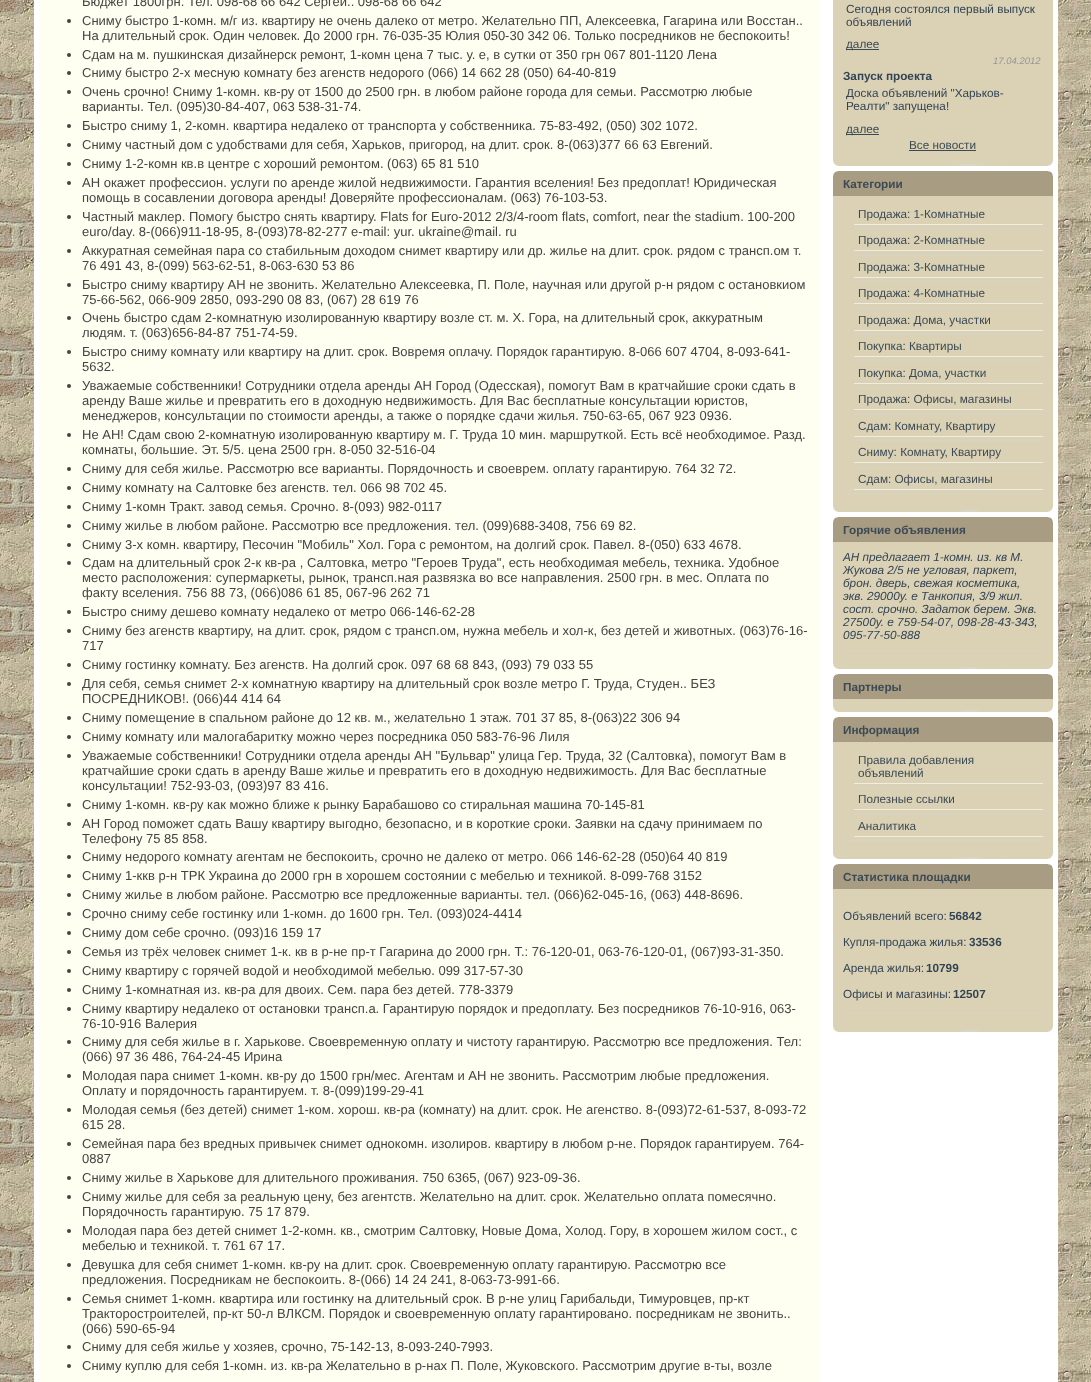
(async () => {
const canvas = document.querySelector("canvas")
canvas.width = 1091
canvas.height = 1382
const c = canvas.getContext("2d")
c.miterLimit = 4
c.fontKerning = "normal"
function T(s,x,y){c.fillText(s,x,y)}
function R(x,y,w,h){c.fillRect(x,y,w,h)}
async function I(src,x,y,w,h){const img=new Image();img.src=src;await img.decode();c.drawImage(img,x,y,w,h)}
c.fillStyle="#fff"
R(0,0,1091,1382)
await I("1.png",0,0,1091,1382)
R(34,0,1024,1382)
c.fillStyle="#fffff1"
R(39,0,780,1382)
c.font="13px Liberation Sans"
c.fillStyle="#444"
T("Бюджет 1800грн. Тел. 098-68 66 642 Сергей.. 098-68 66 642",82,6)
c.beginPath()
c.arc(69,21,2,0,7)
c.fill()
T("Сниму быстро 1-комн. м/г из. квартиру не очень далеко от метро. Желательно ПП, Алексеевка, Гагарина или Восстан..",82,25)
T("На длительный срок. Один человек. До 2000 грн. 76-035-35 Юлия 050-30 342 06. Только посредников не беспокоить!",82,40)
c.beginPath()
c.arc(69,55,2,0,7)
c.fill()
T("Сдам на м. пушкинская дизайнерск ремонт, 1-комн цена 7 тыс. у. е, в сутки от 350 грн 067 801-1120 Лена",82,59)
c.beginPath()
c.arc(69,73,2,0,7)
c.fill()
T("Сниму быстро 2-х месную комнату без агенств недорого (066) 14 662 28 (050) 64-40-819",82,77)
c.beginPath()
c.arc(69,92,2,0,7)
c.fill()
T("Очень срочно! Сниму 1-комн. кв-ру от 1500 до 2500 грн. в любом районе города для семьи. Рассмотрю любые",82,96)
T("варианты. Тел. (095)30-84-407, 063 538-31-74.",82,111)
c.beginPath()
c.arc(69,126,2,0,7)
c.fill()
T("Быстро сниму 1, 2-комн. квартира недалеко от транспорта у собственника. 75-83-492, (050) 302 1072.",82,130)
c.beginPath()
c.arc(69,145,2,0,7)
c.fill()
T("Сниму частный дом с удобствами для себя, Харьков, пригород, на длит. срок. 8-(063)377 66 63 Евгений.",82,149)
c.beginPath()
c.arc(69,164,2,0,7)
c.fill()
T("Сниму 1-2-комн кв.в центре с хороший ремонтом. (063) 65 81 510",82,168)
c.beginPath()
c.arc(69,183,2,0,7)
c.fill()
T("АН окажет профессион. услуги по аренде жилой недвижимости. Гарантия вселения! Без предоплат! Юридическая",82,187)
T("помощь в сосавлении договора аренды! Доверяйте профессионалам. (063) 76-103-53.",82,202)
c.beginPath()
c.arc(69,217,2,0,7)
c.fill()
T("Частный маклер. Помогу быстро снять квартиру. Flats for Euro-2012 2/3/4-room flats, comfort, near the stadium. 100-200",82,221)
T("euro/day. 8-(066)911-18-95, 8-(093)78-82-277 e-mail: yur. ukraine@mail. ru",82,236)
c.beginPath()
c.arc(69,251,2,0,7)
c.fill()
T("Аккуратная семейная пара со стабильным доходом снимет квартиру или др. жилье на длит. срок. рядом с трансп.ом т.",82,255)
T("76 491 43, 8-(099) 563-62-51, 8-063-630 53 86",82,270)
c.beginPath()
c.arc(69,285,2,0,7)
c.fill()
T("Быстро сниму квартиру АН не звонить. Желательно Алексеевка, П. Поле, научная или другой р-н рядом с остановкиом",82,289)
T("75-66-562, 066-909 2850, 093-290 08 83, (067) 28 619 76",82,304)
c.beginPath()
c.arc(69,318,2,0,7)
c.fill()
T("Очень быстро сдам 2-комнатную изолированную квартиру возле ст. м. Х. Гора, на длительный срок, аккуратным",82,322)
T("людям. т. (063)656-84-87 751-74-59.",82,337)
c.beginPath()
c.arc(69,352,2,0,7)
c.fill()
T("Быстро сниму комнату или квартиру на длит. срок. Вовремя оплачу. Порядок гарантирую. 8-066 607 4704, 8-093-641-",82,356)
T("5632.",82,371)
c.beginPath()
c.arc(69,386,2,0,7)
c.fill()
T("Уважаемые собственники! Сотрудники отдела аренды АН Город (Одесская), помогут Вам в кратчайшие сроки сдать в",82,390)
T("аренду Ваше жилье и превратить его в доходную недвижимость. Для Вас бесплатные консультации юристов,",82,405)
T("менеджеров, консультации по стоимости аренды, а также о порядке сдачи жилья. 750-63-65, 067 923 0936.",82,420)
c.beginPath()
c.arc(69,435,2,0,7)
c.fill()
T("Не АН! Сдам свою 2-комнатную изолированную квартиру м. Г. Труда 10 мин. маршруткой. Есть всё необходимое. Разд.",82,439)
T("комнаты, большие. Эт. 5/5. цена 2500 грн. 8-050 32-516-04",82,454)
c.beginPath()
c.arc(69,469,2,0,7)
c.fill()
T("Сниму для себя жилье. Рассмотрю все варианты. Порядочность и своеврем. оплату гарантирую. 764 32 72.",82,473)
c.beginPath()
c.arc(69,488,2,0,7)
c.fill()
T("Сниму комнату на Салтовке без агенств. тел. 066 98 702 45.",82,492)
c.beginPath()
c.arc(69,507,2,0,7)
c.fill()
T("Сниму 1-комн Тракт. завод семья. Срочно. 8-(093) 982-0117",82,511)
c.beginPath()
c.arc(69,526,2,0,7)
c.fill()
T("Сниму жилье в любом районе. Рассмотрю все предложения. тел. (099)688-3408, 756 69 82.",82,530)
c.beginPath()
c.arc(69,545,2,0,7)
c.fill()
T("Сниму 3-х комн. квартиру, Песочин \"Мобиль\" Хол. Гора с ремонтом, на долгий срок. Павел. 8-(050) 633 4678.",82,549)
c.beginPath()
c.arc(69,563,2,0,7)
c.fill()
T("Сдам на длительный срок 2-к кв-ра , Салтовка, метро \"Героев Труда\", есть необходимая мебель, техника. Удобное",82,567)
T("место расположения: супермаркеты, рынок, трансп.ная развязка во все направления. 2500 грн. в мес. Оплата по",82,582)
T("факту вселения. 756 88 73, (066)086 61 85, 067-96 262 71",82,597)
c.beginPath()
c.arc(69,612,2,0,7)
c.fill()
T("Быстро сниму дешево комнату недалеко от метро 066-146-62-28",82,616)
c.beginPath()
c.arc(69,631,2,0,7)
c.fill()
T("Сниму без агенств квартиру, на длит. срок, рядом с трансп.ом, нужна мебель и хол-к, без детей и животных. (063)76-16-",82,635)
T("717",82,650)
c.beginPath()
c.arc(69,665,2,0,7)
c.fill()
T("Сниму гостинку комнату. Без агенств. На долгий срок. 097 68 68 843, (093) 79 033 55",82,669)
c.beginPath()
c.arc(69,684,2,0,7)
c.fill()
T("Для себя, семья снимет 2-х комнатную квартиру на длительный срок возле метро Г. Труда, Студен.. БЕЗ",82,688)
T("ПОСРЕДНИКОВ!. (066)44 414 64",82,703)
c.beginPath()
c.arc(69,718,2,0,7)
c.fill()
T("Сниму помещение в спальном районе до 12 кв. м., желательно 1 этаж. 701 37 85, 8-(063)22 306 94",82,722)
c.beginPath()
c.arc(69,737,2,0,7)
c.fill()
T("Сниму комнату или малогабаритку можно через посредника 050 583-76-96 Лиля",82,741)
c.beginPath()
c.arc(69,756,2,0,7)
c.fill()
T("Уважаемые собственники! Сотрудники отдела аренды АН \"Бульвар\" улица Гер. Труда, 32 (Салтовка), помогут Вам в",82,760)
T("кратчайшие сроки сдать в аренду Ваше жилье и превратить его в доходную недвижимость. Для Вас бесплатные",82,775)
T("консультации! 752-93-03, (093)97 83 416.",82,790)
c.beginPath()
c.arc(69,805,2,0,7)
c.fill()
T("Сниму 1-комн. кв-ру как можно ближе к рынку Барабашово со стиральная машина 70-145-81",82,809)
c.beginPath()
c.arc(69,824,2,0,7)
c.fill()
T("АН Город поможет сдать Вашу квартиру выгодно, безопасно, и в короткие сроки. Заявки на сдачу принимаем по",82,828)
T("Телефону 75 85 858.",82,843)
c.beginPath()
c.arc(69,857,2,0,7)
c.fill()
T("Сниму недорого комнату агентам не беспокоить, срочно не далеко от метро. 066 146-62-28 (050)64 40 819",82,861)
c.beginPath()
c.arc(69,876,2,0,7)
c.fill()
T("Сниму 1-ккв р-н ТРК Украина до 2000 грн в хорошем состоянии с мебелью и техникой. 8-099-768 3152",82,880)
c.beginPath()
c.arc(69,895,2,0,7)
c.fill()
T("Сниму жилье в любом районе. Рассмотрю все предложенные варианты. тел. (066)62-045-16, (063) 448-8696.",82,899)
c.beginPath()
c.arc(69,914,2,0,7)
c.fill()
T("Срочно сниму себе гостинку или 1-комн. до 1600 грн. Тел. (093)024-4414",82,918)
c.beginPath()
c.arc(69,933,2,0,7)
c.fill()
T("Сниму дом себе срочно. (093)16 159 17",82,937)
c.beginPath()
c.arc(69,952,2,0,7)
c.fill()
T("Семья из трёх человек снимет 1-к. кв в р-не пр-т Гагарина до 2000 грн. Т.: 76-120-01, 063-76-120-01, (067)93-31-350.",82,956)
c.beginPath()
c.arc(69,971,2,0,7)
c.fill()
T("Сниму квартиру с горячей водой и необходимой мебелью. 099 317-57-30",82,975)
c.beginPath()
c.arc(69,990,2,0,7)
c.fill()
T("Сниму 1-комнатная из. кв-ра для двоих. Сем. пара без детей. 778-3379",82,994)
c.beginPath()
c.arc(69,1009,2,0,7)
c.fill()
T("Сниму квартиру недалеко от остановки трансп.а. Гарантирую порядок и предоплату. Без посредников 76-10-916, 063-",82,1013)
T("76-10-916 Валерия",82,1028)
c.beginPath()
c.arc(69,1042,2,0,7)
c.fill()
T("Сниму для себя жилье в г. Харькове. Своевременную оплату и чистоту гарантирую. Рассмотрю все предложения. Тел:",82,1046)
T("(066) 97 36 486, 764-24-45 Ирина",82,1061)
c.beginPath()
c.arc(69,1076,2,0,7)
c.fill()
T("Молодая пара снимет 1-комн. кв-ру до 1500 грн/мес. Агентам и АН не звонить. Рассмотрим любые предложения.",82,1080)
T("Оплату и порядочность гарантируем. т. 8-(099)199-29-41",82,1095)
c.beginPath()
c.arc(69,1110,2,0,7)
c.fill()
T("Молодая семья (без детей) снимет 1-ком. хорош. кв-ра (комнату) на длит. срок. Не агенство. 8-(093)72-61-537, 8-093-72",82,1114)
T("615 28.",82,1129)
c.beginPath()
c.arc(69,1144,2,0,7)
c.fill()
T("Семейная пара без вредных привычек снимет однокомн. изолиров. квартиру в любом р-не. Порядок гарантируем. 764-",82,1148)
T("0887",82,1163)
c.beginPath()
c.arc(69,1178,2,0,7)
c.fill()
T("Сниму жилье в Харькове для длительного проживания. 750 6365, (067) 923-09-36.",82,1182)
c.beginPath()
c.arc(69,1197,2,0,7)
c.fill()
T("Сниму жилье для себя за реальную цену, без агентств. Желательно на длит. срок. Желательно оплата помесячно.",82,1201)
T("Порядочность гарантирую. 75 17 879.",82,1216)
c.beginPath()
c.arc(69,1231,2,0,7)
c.fill()
T("Молодая пара без детей снимет 1-2-комн. кв., смотрим Салтовку, Новые Дома, Холод. Гору, в хорошем жилом сост., с",82,1235)
T("мебелью и техникой. т. 761 67 17.",82,1250)
c.beginPath()
c.arc(69,1265,2,0,7)
c.fill()
T("Девушка для себя снимет 1-комн. кв-ру на длит. срок. Своевременную оплату гарантирую. Рассмотрю все",82,1269)
T("предложения. Посредникам не беспокоить. 8-(066) 14 24 241, 8-063-73-991-66.",82,1284)
c.beginPath()
c.arc(69,1299,2,0,7)
c.fill()
T("Семья снимет 1-комн. квартира или гостинку на длительный срок. В р-не улиц Гарибальди, Тимуровцев, пр-кт",82,1303)
T("Тракторостроителей, пр-кт 50-л ВЛКСМ. Порядок и своевременную оплату гарантировано. посредникам не звонить..",82,1318)
T("(066) 590-65-94",82,1333)
c.beginPath()
c.arc(69,1347,2,0,7)
c.fill()
T("Сниму для себя жилье у хозяев, срочно, 75-142-13, 8-093-240-7993.",82,1351)
c.beginPath()
c.arc(69,1366,2,0,7)
c.fill()
T("Сниму куплю для себя 1-комн. из. кв-ра Желательно в р-нах П. Поле, Жуковского. Рассмотрим другие в-ты, возле",82,1370)
c.fillStyle="#dbd2b5"
R(833,0,220,161)
c.font="11.75px Liberation Sans"
c.fillStyle="#345"
T("Сегодня состоялся первый выпуск",846,13)
T("объявлений",846,26)
c.fillStyle="#3c4a55"
R(846,49,33,1)
T("далее",846,48)
c.font="italic 9.5px Liberation Sans"
c.fillStyle="#959595"
T("17.04.2012",993,64)
c.font="bold 11.75px Liberation Sans"
c.fillStyle="#345"
T("Запуск проекта",843,80)
c.font="11.75px Liberation Sans"
T("Доска объявлений \"Харьков-",846,97)
T("Реалти\" запущена!",846,110)
c.fillStyle="#3c4a55"
R(846,134,33,1)
T("далее",846,133)
T("Все новости",909,149)
R(909,150,67,1)
await I("2.png",833,161,220,5)
c.fillStyle="#a89c82"
R(833,176,220,19)
await I("3.png",833,171,220,5)
c.font="bold 11.75px Liberation Sans"
c.fillStyle="#3c4a55"
T("Категории",843,188)
c.fillStyle="#dbd2b5"
R(833,196,220,311)
c.fillStyle="#a79b81"
R(833,195,220,1)
c.fillStyle="#d6d3c8"
R(843,493,200,1)
c.fillStyle="#efece1"
R(854,224,189,1)
c.font="11.75px Liberation Sans"
c.fillStyle="#3c4a55"
T("Продажа: 1-Комнатные",858,218)
c.fillStyle="#d6d3c8"
R(854,228,189,1)
c.fillStyle="#efece1"
R(854,250,189,1)
c.fillStyle="#3c4a55"
T("Продажа: 2-Комнатные",858,244)
c.fillStyle="#d6d3c8"
R(854,255,189,1)
c.fillStyle="#efece1"
R(854,277,189,1)
c.fillStyle="#3c4a55"
T("Продажа: 3-Комнатные",858,271)
c.fillStyle="#d6d3c8"
R(854,281,189,1)
c.fillStyle="#efece1"
R(854,303,189,1)
c.fillStyle="#3c4a55"
T("Продажа: 4-Комнатные",858,297)
c.fillStyle="#d6d3c8"
R(854,308,189,1)
c.fillStyle="#efece1"
R(854,330,189,1)
c.fillStyle="#3c4a55"
T("Продажа: Дома, участки",858,324)
c.fillStyle="#d6d3c8"
R(854,334,189,1)
c.fillStyle="#efece1"
R(854,356,189,1)
c.fillStyle="#3c4a55"
T("Покупка: Квартиры",858,350)
c.fillStyle="#d6d3c8"
R(854,361,189,1)
c.fillStyle="#efece1"
R(854,383,189,1)
c.fillStyle="#3c4a55"
T("Покупка: Дома, участки",858,377)
c.fillStyle="#d6d3c8"
R(854,387,189,1)
c.fillStyle="#efece1"
R(854,409,189,1)
c.fillStyle="#3c4a55"
T("Продажа: Офисы, магазины",858,403)
c.fillStyle="#d6d3c8"
R(854,414,189,1)
c.fillStyle="#efece1"
R(854,436,189,1)
c.fillStyle="#3c4a55"
T("Сдам: Комнату, Квартиру",858,430)
c.fillStyle="#d6d3c8"
R(854,440,189,1)
c.fillStyle="#efece1"
R(854,462,189,1)
c.fillStyle="#3c4a55"
T("Сниму: Комнату, Квартиру",858,456)
c.fillStyle="#d6d3c8"
R(854,467,189,1)
c.fillStyle="#efece1"
R(854,489,189,1)
c.fillStyle="#3c4a55"
T("Сдам: Офисы, магазины",858,483)
await I("2.png",833,507,220,5)
c.fillStyle="#a89c82"
R(833,522,220,19)
await I("3.png",833,517,220,5)
c.font="bold 11.75px Liberation Sans"
c.fillStyle="#3c4a55"
T("Горячие объявления",843,534)
c.fillStyle="#dbd2b5"
R(833,542,220,122)
c.fillStyle="#a79b81"
R(833,541,220,1)
c.fillStyle="#d6d3c8"
R(843,650,200,1)
c.font="italic 11.75px Liberation Sans"
c.fillStyle="#345"
T("АН предлагает 1-комн. из. кв М.",843,561)
T("Жукова 2/5 не угловая, паркет,",843,574)
T("брон. дверь, свежая косметика,",843,587)
T("экв. 29000у. е Танкопия, 3/9 жил.",843,600)
T("сост. срочно. Задаток берем. Экв.",843,613)
T("27500у. е 759-54-07, 098-28-43-343,",843,626)
T("095-77-50-888",843,639)
await I("2.png",833,664,220,5)
c.fillStyle="#a89c82"
R(833,679,220,19)
await I("3.png",833,674,220,5)
c.font="bold 11.75px Liberation Sans"
c.fillStyle="#3c4a55"
T("Партнеры",843,691)
c.fillStyle="#dbd2b5"
R(833,699,220,8)
c.fillStyle="#a79b81"
R(833,698,220,1)
await I("2.png",833,707,220,5)
c.fillStyle="#a89c82"
R(833,722,220,19)
await I("3.png",833,717,220,5)
c.fillStyle="#3c4a55"
T("Информация",843,734)
c.fillStyle="#dbd2b5"
R(833,742,220,112)
c.fillStyle="#a79b81"
R(833,741,220,1)
c.fillStyle="#d6d3c8"
R(843,840,200,1)
c.fillStyle="#efece1"
R(854,783,189,1)
c.font="11.75px Liberation Sans"
c.fillStyle="#3c4a55"
T("Правила добавления",858,764)
T("объявлений",858,777)
c.fillStyle="#d6d3c8"
R(854,787,189,1)
c.fillStyle="#efece1"
R(854,809,189,1)
c.fillStyle="#3c4a55"
T("Полезные ссылки",858,803)
c.fillStyle="#d6d3c8"
R(854,814,189,1)
c.fillStyle="#efece1"
R(854,836,189,1)
c.fillStyle="#3c4a55"
T("Аналитика",858,830)
await I("2.png",833,854,220,5)
c.fillStyle="#a89c82"
R(833,869,220,19)
await I("3.png",833,864,220,5)
c.font="bold 11.75px Liberation Sans"
c.fillStyle="#3c4a55"
T("Статистика площадки",843,881)
c.fillStyle="#dbd2b5"
R(833,889,220,138)
c.fillStyle="#a79b81"
R(833,888,220,1)
c.fillStyle="#d6d3c8"
R(843,1013,200,1)
c.font="11.75px Liberation Sans"
c.fillStyle="#345"
T("Объявлений всего:",843,920)
c.font="bold 11.75px Liberation Sans"
T("56842",949,920)
c.font="11.75px Liberation Sans"
T("Купля-продажа жилья:",843,946)
c.font="bold 11.75px Liberation Sans"
T("33536",969,946)
c.font="11.75px Liberation Sans"
T("Аренда жилья:",843,972)
c.font="bold 11.75px Liberation Sans"
T("10799",926,972)
c.font="11.75px Liberation Sans"
T("Офисы и магазины:",843,998)
c.font="bold 11.75px Liberation Sans"
T("12507",953,998)
await I("2.png",833,1027,220,5)
})()
